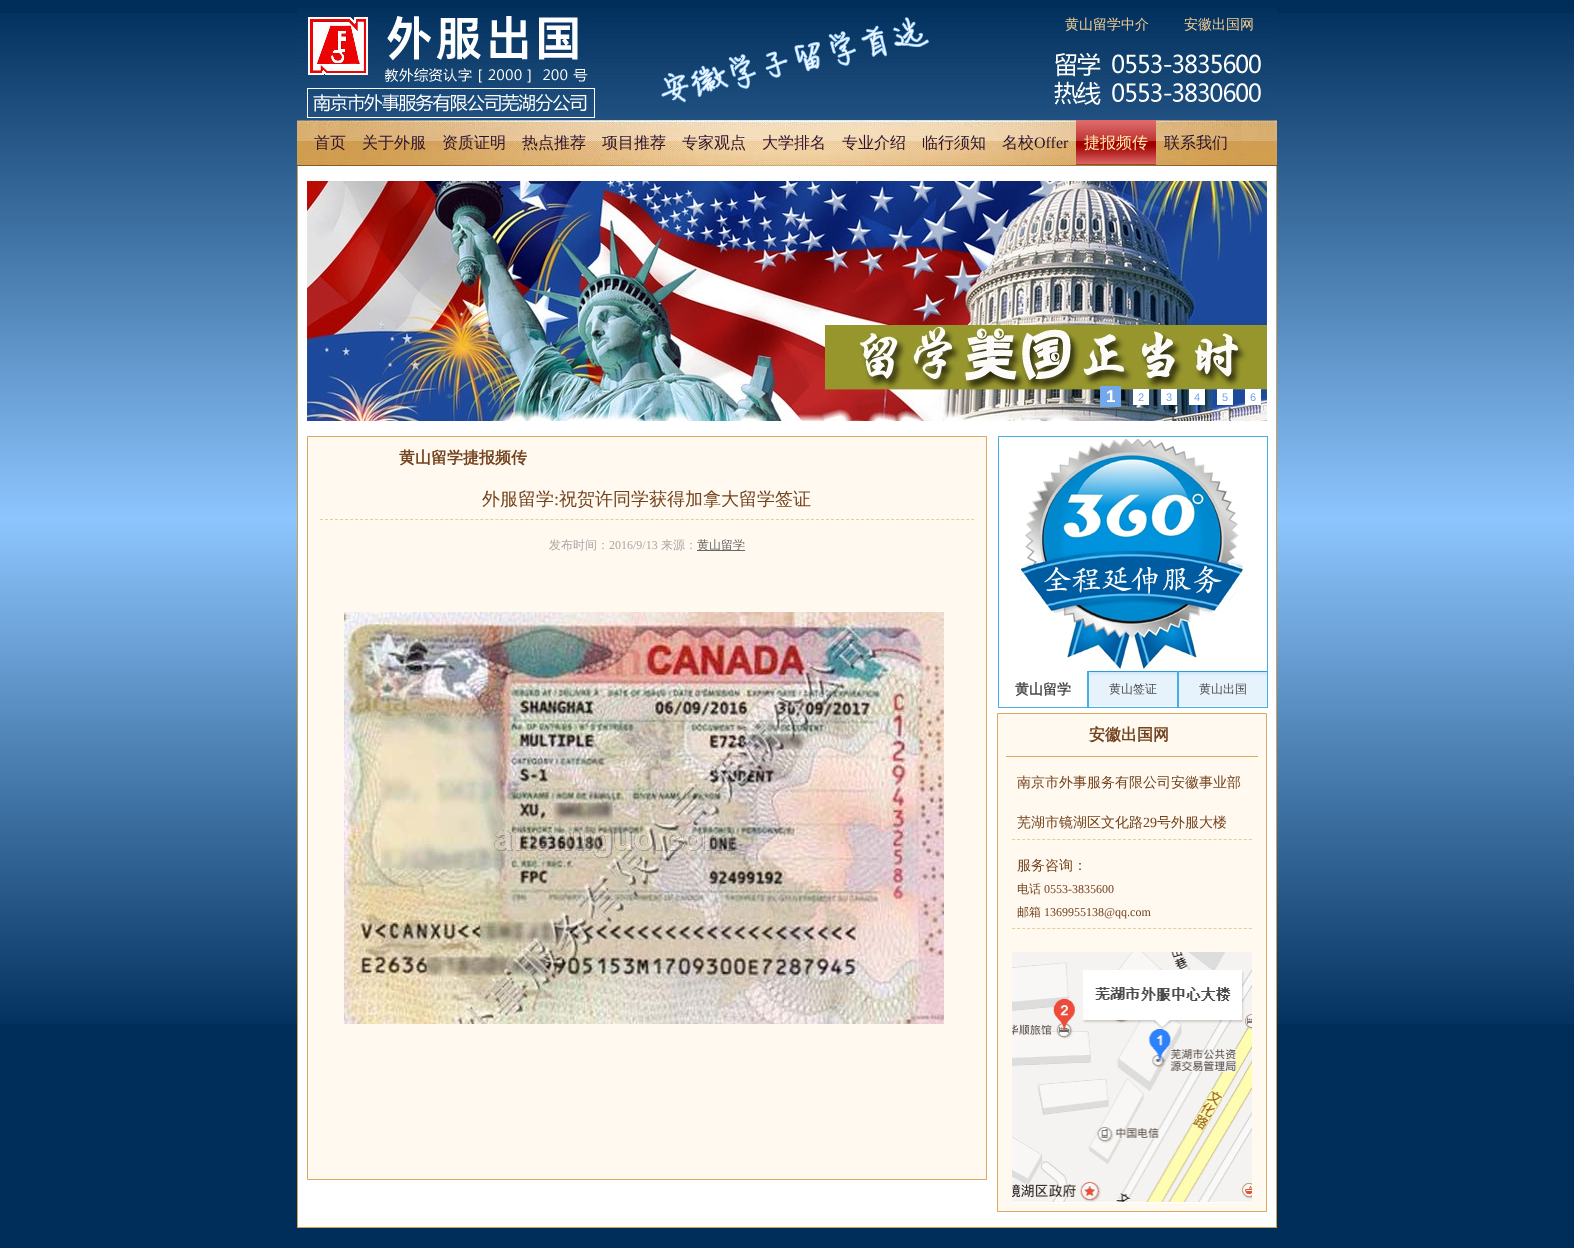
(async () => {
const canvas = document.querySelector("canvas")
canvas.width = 1574
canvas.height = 1248
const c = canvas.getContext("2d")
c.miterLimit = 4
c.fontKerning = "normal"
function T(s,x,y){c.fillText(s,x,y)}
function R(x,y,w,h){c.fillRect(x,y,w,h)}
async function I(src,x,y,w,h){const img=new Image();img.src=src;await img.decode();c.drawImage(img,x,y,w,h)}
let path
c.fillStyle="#002e5b"
R(0,0,1574,1248)
await I("1.png",0,13,1574,1011)
await I("2.png",297,8,980,158)
c.font="500 14px WenQuanYi Zen Hei"
c.fillStyle="#f0cd93"
T("黄山留学中介",1065,29)
T("安徽出国网",1184,29)
c.font="500 16px WenQuanYi Zen Hei"
c.fillStyle="#2c122c"
T("首页",314,148)
T("关于外服",362,148)
T("资质证明",442,148)
T("热点推荐",522,148)
T("项目推荐",602,148)
T("专家观点",682,148)
T("大学排名",762,148)
T("专业介绍",842,148)
T("临行须知",922,148)
T("名校",1002,148)
c.font="16px Liberation Serif"
T("Offer",1034,148)
await I("3.png",1076,120,80,45)
c.font="500 16px WenQuanYi Zen Hei"
c.fillStyle="#ffeaaa"
T("捷报频传",1084,148)
c.fillStyle="#2c122c"
T("联系我们",1164,148)
c.fillStyle="#fff"
R(298,166,978,1061)
c.fillStyle="#d2a04f"
R(1276,166,1,1062)
R(297,1227,980,1)
R(297,166,1,1062)
await I("4.png",307,181,960,240)
c.fillStyle="#74a8ed"
R(1100,386,21,21)
c.font="bold 17px Liberation Sans"
c.fillStyle="#fff"
T("1",1106,402)
R(1133,389,16,16)
c.font="11px Liberation Sans"
c.fillStyle="#74a8ed"
T("2",1138,401)
c.fillStyle="#fff"
R(1161,389,16,16)
c.fillStyle="#74a8ed"
T("3",1166,401)
c.fillStyle="#fff"
R(1189,389,16,16)
c.fillStyle="#74a8ed"
T("4",1194,401)
c.fillStyle="#fff"
R(1217,389,16,16)
c.fillStyle="#74a8ed"
T("5",1222,401)
c.fillStyle="#fff"
R(1245,389,16,16)
c.fillStyle="#74a8ed"
T("6",1250,401)
c.fillStyle="#fff9ef"
c.beginPath()
c.rect(307.5,436.5,679,743)
c.fill()
c.strokeStyle="#d9a95f"
c.stroke()
c.font="bold 16px WenQuanYi Zen Hei"
c.fillStyle="#73421e"
T("黄山留学捷报频传",399,463)
path = new Path2D("M320 519.5h654")
c.strokeStyle="#e7cca1"
c.setLineDash([3,2.01])
c.stroke(path)
c.font="500 18px WenQuanYi Zen Hei"
T("外服留学",482,505)
c.font="18px Liberation Serif"
T(":",554,505)
c.font="500 18px WenQuanYi Zen Hei"
T("祝贺许同学获得加拿大留学签证",559,505)
c.font="500 12px WenQuanYi Zen Hei"
c.fillStyle="#a8a8a8"
T("发布时间：",549,549)
c.font="12px Liberation Serif"
T("2016/9/13",609,549)
c.font="500 12px WenQuanYi Zen Hei"
T("来源：",661,549)
c.fillStyle="#666"
R(697,550,48,1)
T("黄山留学",697,549)
await I("5.png",344,612,600,412)
c.fillStyle="#47ade6"
R(998,436,270,272)
c.strokeStyle="#fff"
c.lineWidth=2
c.setLineDash([])
c.strokeRect(1000,438,266,232)
await I("6.png",1001,439,264,230)
c.fillStyle="#fff"
R(999,671,88,36)
c.font="bold 14px WenQuanYi Zen Hei"
c.fillStyle="#4b4b4b"
T("黄山留学",1015,694)
await I("7.png",1089,671,88,36)
c.font="500 12px WenQuanYi Zen Hei"
T("黄山签证",1109,693)
await I("7.png",1179,671,88,36)
T("黄山出国",1199,693)
c.fillStyle="#fff9ef"
c.beginPath()
c.rect(997.5,713.5,269,498)
c.fill()
c.strokeStyle="#d9a95f"
c.lineWidth=1
c.stroke()
c.font="bold 16px WenQuanYi Zen Hei"
c.fillStyle="#73421e"
T("安徽出国网",1089,740)
c.fillStyle="#d9a95f"
R(1006,756,252,1)
c.font="500 14px WenQuanYi Zen Hei"
c.fillStyle="#73421e"
T("南京市外事服务有限公司安徽事业部",1017,787)
T("芜湖市镜湖区文化路",1017,827)
c.font="14px Liberation Serif"
T("29",1143,827)
c.font="500 14px WenQuanYi Zen Hei"
T("号外服大楼",1157,827)
path = new Path2D("M1012 839.5h240")
c.strokeStyle="#e7cca1"
c.setLineDash([3,2.04])
c.stroke(path)
T("服务咨询：",1017,870)
c.font="500 12px WenQuanYi Zen Hei"
T("电话",1017,893)
c.font="12px Liberation Serif"
T("0553-3835600",1044,893)
c.font="500 12px WenQuanYi Zen Hei"
T("邮箱",1017,916)
c.font="12px Liberation Serif"
T("1369955138@qq.com",1044,916)
path = new Path2D("M1012 928.5h240")
c.stroke(path)
await I("8.png",1012,952,240,251)
})()
